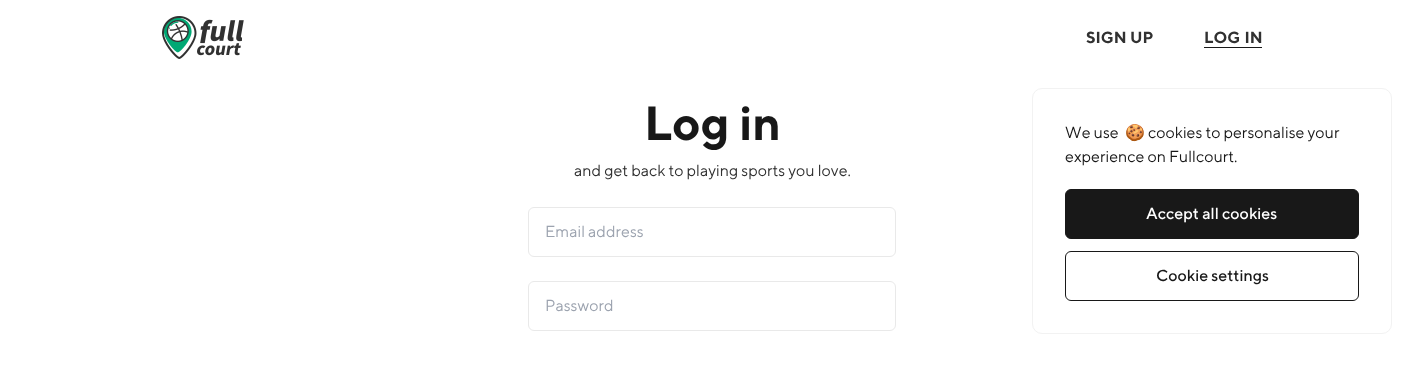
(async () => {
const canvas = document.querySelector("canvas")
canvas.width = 1424
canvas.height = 374
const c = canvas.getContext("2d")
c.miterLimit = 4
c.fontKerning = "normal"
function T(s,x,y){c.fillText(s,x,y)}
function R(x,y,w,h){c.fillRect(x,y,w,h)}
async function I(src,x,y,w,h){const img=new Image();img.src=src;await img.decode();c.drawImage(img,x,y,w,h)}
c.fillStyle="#fff"
R(0,0,1424,374)
await I("1.png",162,16,82,43)
c.font="bold 16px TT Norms"
c.fillStyle="#313131"
T("SIGN UP",1086,43)
c.wordSpacing="1px"
T("LOG IN",1204,43)
c.fillStyle="#181818"
R(1204,47,58,1)
c.wordSpacing="0px"
c.font="bold 48px TT Norms"
T("Log in",644,140)
c.font="16px TT Norms"
c.fillStyle="#313131"
T("and get back to playing sports you love.",574,176)
c.beginPath()
c.roundRect(528.5,207.5,367,49,5.5)
c.strokeStyle="#e9e9e9"
c.stroke()
c.fillStyle="#9ca3af"
T("Email address",545,237)
c.beginPath()
c.roundRect(528.5,281.5,367,49,5.5)
c.stroke()
T("Password",545,311)
c.beginPath()
c.roundRect(1032.5,88.5,359,245,9.5)
c.strokeStyle="#f2f2f2"
c.stroke()
c.fillStyle="#181818"
T("We use",1065,138)
c.font="16px Noto Color Emoji"
T("🍪",1125,138)
c.font="16px TT Norms"
T("cookies to personalise your",1148,138)
T("experience on Fullcourt.",1065,162)
c.beginPath()
c.roundRect(1065.5,189.5,293,49,5.5)
c.fill()
c.strokeStyle="#181818"
c.stroke()
c.font="500 16px TT Norms"
c.fillStyle="#fff"
T("Accept all cookies",1146,219)
c.beginPath()
c.roundRect(1065.5,251.5,293,49,5.5)
c.stroke()
c.fillStyle="#181818"
T("Cookie settings",1156,281)
})()
